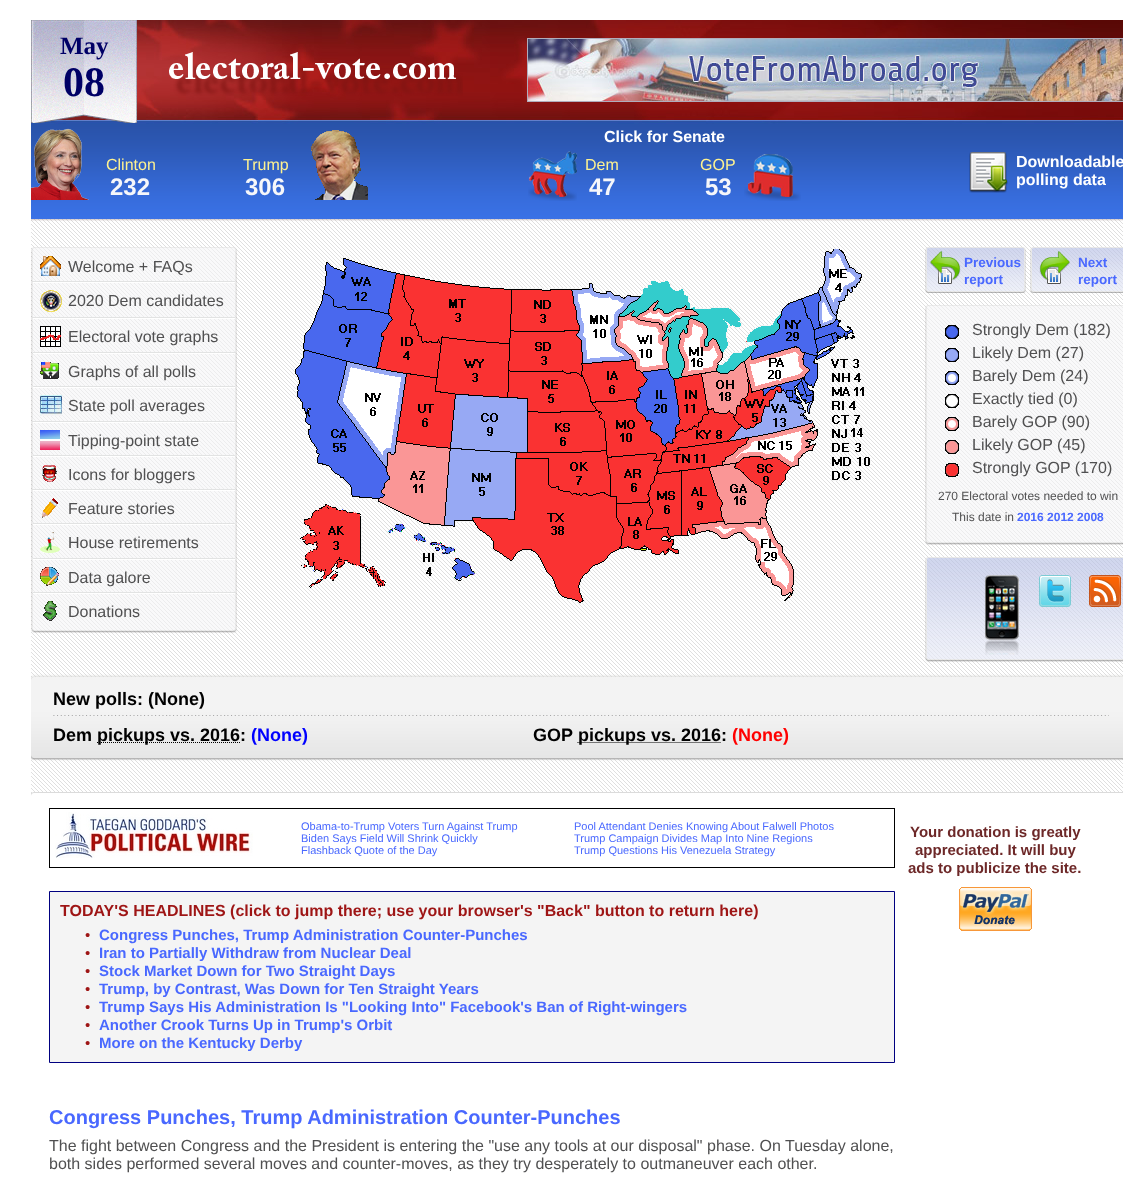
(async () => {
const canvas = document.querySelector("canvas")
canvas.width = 1123
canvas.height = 1181
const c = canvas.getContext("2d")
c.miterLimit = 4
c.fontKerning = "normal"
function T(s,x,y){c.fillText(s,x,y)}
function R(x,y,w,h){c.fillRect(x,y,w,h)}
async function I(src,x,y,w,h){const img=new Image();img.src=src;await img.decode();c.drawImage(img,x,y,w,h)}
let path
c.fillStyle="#fff"
R(0,0,1123,1181)
await I("1.png",31,219,1092,574)
await I("2.png",31,124,1092,97)
await I("3.png",31,20,1092,104)
await I("4.png",31,20,106,103)
c.font="bold 25px Liberation Serif"
c.fillStyle="#006"
T("May",60,54)
c.font="bold 42px Liberation Serif"
T("08",63,96)
await I("5.png",169,52,294,44)
c.strokeStyle="#b0adbc"
c.strokeRect(527.5,38.5,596,63)
await I("6.png",528,39,595,62)
await I("7.png",31,128,58,72)
c.font="16px Liberation Sans"
c.fillStyle="#fef290"
T("Clinton",106,170)
c.font="bold 24px Liberation Sans"
c.fillStyle="#f6f7fa"
T("232",110,195)
c.font="16px Liberation Sans"
c.fillStyle="#fef290"
T("Trump",243,170)
await I("8.png",311,130,57,70)
c.font="bold 24px Liberation Sans"
c.fillStyle="#f6f7fa"
T("306",245,195)
c.font="bold 16px Liberation Sans"
c.fillStyle="#fff"
T("Click for Senate",604,142)
await I("9.png",528,151,49,50)
c.font="16px Liberation Sans"
c.fillStyle="#fef290"
T("Dem",585,170)
c.font="bold 24px Liberation Sans"
c.fillStyle="#f6f7fa"
T("47",589,195)
c.font="16px Liberation Sans"
c.fillStyle="#fef290"
T("GOP",700,170)
await I("10.png",744,154,57,47)
c.font="bold 24px Liberation Sans"
c.fillStyle="#f6f7fa"
T("53",705,195)
await I("11.png",969,152,39,41)
c.font="bold 16px Liberation Sans"
c.fillStyle="#fff"
T("Downloadable",1016,167)
T("polling data",1016,185)
await I("12.png",31,247,206,5)
await I("13.png",31,628,206,5)
await I("14.png",31,252,206,376)
await I("15.png",40,256,21,20)
c.font="16px Liberation Sans"
c.fillStyle="#505051"
T("Welcome + FAQs",68,272)
await I("16.png",33,281,202,2)
await I("17.png",40,290,22,22)
T("2020 Dem candidates",68,306)
await I("16.png",33,317,202,2)
await I("18.png",40,326,21,21)
T("Electoral vote graphs",68,342)
await I("16.png",33,352,202,2)
await I("19.png",40,362,19,17)
T("Graphs of all polls",68,377)
await I("16.png",33,386,202,2)
await I("20.png",40,395,22,21)
T("State poll averages",68,411)
await I("16.png",33,421,202,2)
await I("21.png",40,430,20,20)
T("Tipping-point state",68,446)
await I("16.png",33,455,202,2)
await I("22.png",42,465,15,17)
T("Icons for bloggers",68,480)
await I("16.png",33,489,202,2)
await I("23.png",42,498,16,20)
T("Feature stories",68,514)
await I("16.png",33,523,202,2)
await I("24.png",40,532,20,21)
T("House retirements",68,548)
await I("16.png",33,558,202,2)
await I("25.png",40,567,19,19)
T("Data galore",68,583)
await I("16.png",33,592,202,2)
await I("26.png",43,601,14,20)
T("Donations",68,617)
await I("27.png",295,249,576,355)
await I("28.png",925,247,101,46)
await I("29.png",930,251,31,33)
c.font="bold 13.5px Liberation Sans"
c.fillStyle="#4968ff"
T("Previous",964,267)
T("report",964,284)
await I("30.png",1030,247,93,46)
await I("31.png",1039,251,31,33)
T("Next",1078,267)
T("report",1078,284)
await I("32.png",925,305,198,5)
await I("33.png",925,540,198,5)
await I("34.png",925,310,198,230)
await I("35.png",945,325,14,14)
c.font="16px Liberation Sans"
c.fillStyle="#505051"
T("Strongly Dem (182)",972,335)
await I("36.png",945,348,14,14)
T("Likely Dem (27)",972,358)
await I("37.png",945,371,14,14)
T("Barely Dem (24)",972,381)
await I("38.png",945,394,14,14)
T("Exactly tied (0)",972,404)
await I("39.png",945,417,14,14)
T("Barely GOP (90)",972,427)
await I("40.png",945,440,14,14)
T("Likely GOP (45)",972,450)
await I("41.png",945,463,14,14)
T("Strongly GOP (170)",972,473)
c.font="12px Liberation Sans"
T("270 Electoral votes needed to win",938,500)
T("This date in",952,521)
c.font="bold 12px Liberation Sans"
c.fillStyle="#4968ff"
T("2016 2012 2008",1017,521)
await I("42.png",925,657,198,5)
await I("43.png",925,557,198,100)
await I("44.png",985,575,34,80)
await I("45.png",1039,575,32,32)
await I("46.png",1089,575,32,32)
await I("47.png",31,674,1092,10)
await I("48.png",31,710,1092,51)
c.fillStyle="#f3f3f3"
R(31,684,1092,26)
c.font="bold 18px Liberation Sans"
c.fillStyle="#000"
T("New polls: (None)",53,705)
await I("49.png",53,715,1056,1)
T("Dem",53,741)
path = new Path2D("M97 742.5h143")
c.strokeStyle="#000"
c.setLineDash([1,1])
c.stroke(path)
T("pickups vs. 2016:",97,741)
c.fillStyle="#00f"
T("(None)",251,741)
c.fillStyle="#000"
T("GOP",533,741)
path = new Path2D("M577.5 742.5h143.5")
c.stroke(path)
T("pickups vs. 2016:",578,741)
c.fillStyle="#f00"
T("(None)",732,741)
await I("50.png",31,792,1092,389)
c.setLineDash([])
c.strokeRect(49.5,808.5,845,59)
await I("51.png",55,812,198,46)
c.font="11px Liberation Sans"
c.fillStyle="#4968ff"
T("Obama-to-Trump Voters Turn Against Trump",301,830)
T("Biden Says Field Will Shrink Quickly",301,842)
T("Flashback Quote of the Day",301,854)
T("Pool Attendant Denies Knowing About Falwell Photos",574,830)
T("Trump Campaign Divides Map Into Nine Regions",574,842)
T("Trump Questions His Venezuela Strategy",574,854)
c.fillStyle="#f4f4f4"
c.beginPath()
c.rect(49.5,891.5,845,171)
c.fill()
c.strokeStyle="#000080"
c.stroke()
c.font="bold 16px Liberation Sans"
c.fillStyle="#9e1515"
T("TODAY'S HEADLINES (click to jump there; use your browser's \"Back\" button to return here)",60,916)
c.font="15px Liberation Sans"
T("•",85,940)
c.font="bold 15px Liberation Sans"
c.fillStyle="#4968ff"
T("Congress Punches, Trump Administration Counter-Punches",99,940)
c.font="15px Liberation Sans"
c.fillStyle="#9e1515"
T("•",85,958)
c.font="bold 15px Liberation Sans"
c.fillStyle="#4968ff"
T("Iran to Partially Withdraw from Nuclear Deal",99,958)
c.font="15px Liberation Sans"
c.fillStyle="#9e1515"
T("•",85,976)
c.font="bold 15px Liberation Sans"
c.fillStyle="#4968ff"
T("Stock Market Down for Two Straight Days",99,976)
c.font="15px Liberation Sans"
c.fillStyle="#9e1515"
T("•",85,994)
c.font="bold 15px Liberation Sans"
c.fillStyle="#4968ff"
T("Trump, by Contrast, Was Down for Ten Straight Years",99,994)
c.font="15px Liberation Sans"
c.fillStyle="#9e1515"
T("•",85,1012)
c.font="bold 15px Liberation Sans"
c.fillStyle="#4968ff"
T("Trump Says His Administration Is \"Looking Into\" Facebook's Ban of Right-wingers",99,1012)
c.font="15px Liberation Sans"
c.fillStyle="#9e1515"
T("•",85,1030)
c.font="bold 15px Liberation Sans"
c.fillStyle="#4968ff"
T("Another Crook Turns Up in Trump's Orbit",99,1030)
c.font="15px Liberation Sans"
c.fillStyle="#9e1515"
T("•",85,1048)
c.font="bold 15px Liberation Sans"
c.fillStyle="#4968ff"
T("More on the Kentucky Derby",99,1048)
c.font="bold 20px Liberation Sans"
T("Congress Punches, Trump Administration Counter-Punches",49,1124)
c.font="16px Liberation Sans"
c.fillStyle="#505051"
T("The fight between Congress and the President is entering the \"use any tools at our disposal\" phase. On Tuesday alone,",49,1151)
T("both sides performed several moves and counter-moves, as they try desperately to outmaneuver each other.",49,1169)
c.font="bold 15px Liberation Sans"
c.fillStyle="#6d2828"
T("Your donation is greatly",910,837)
T("appreciated. It will buy",915,855)
T("ads to publicize the site.",908,873)
await I("52.png",959,887,73,44)
})()
